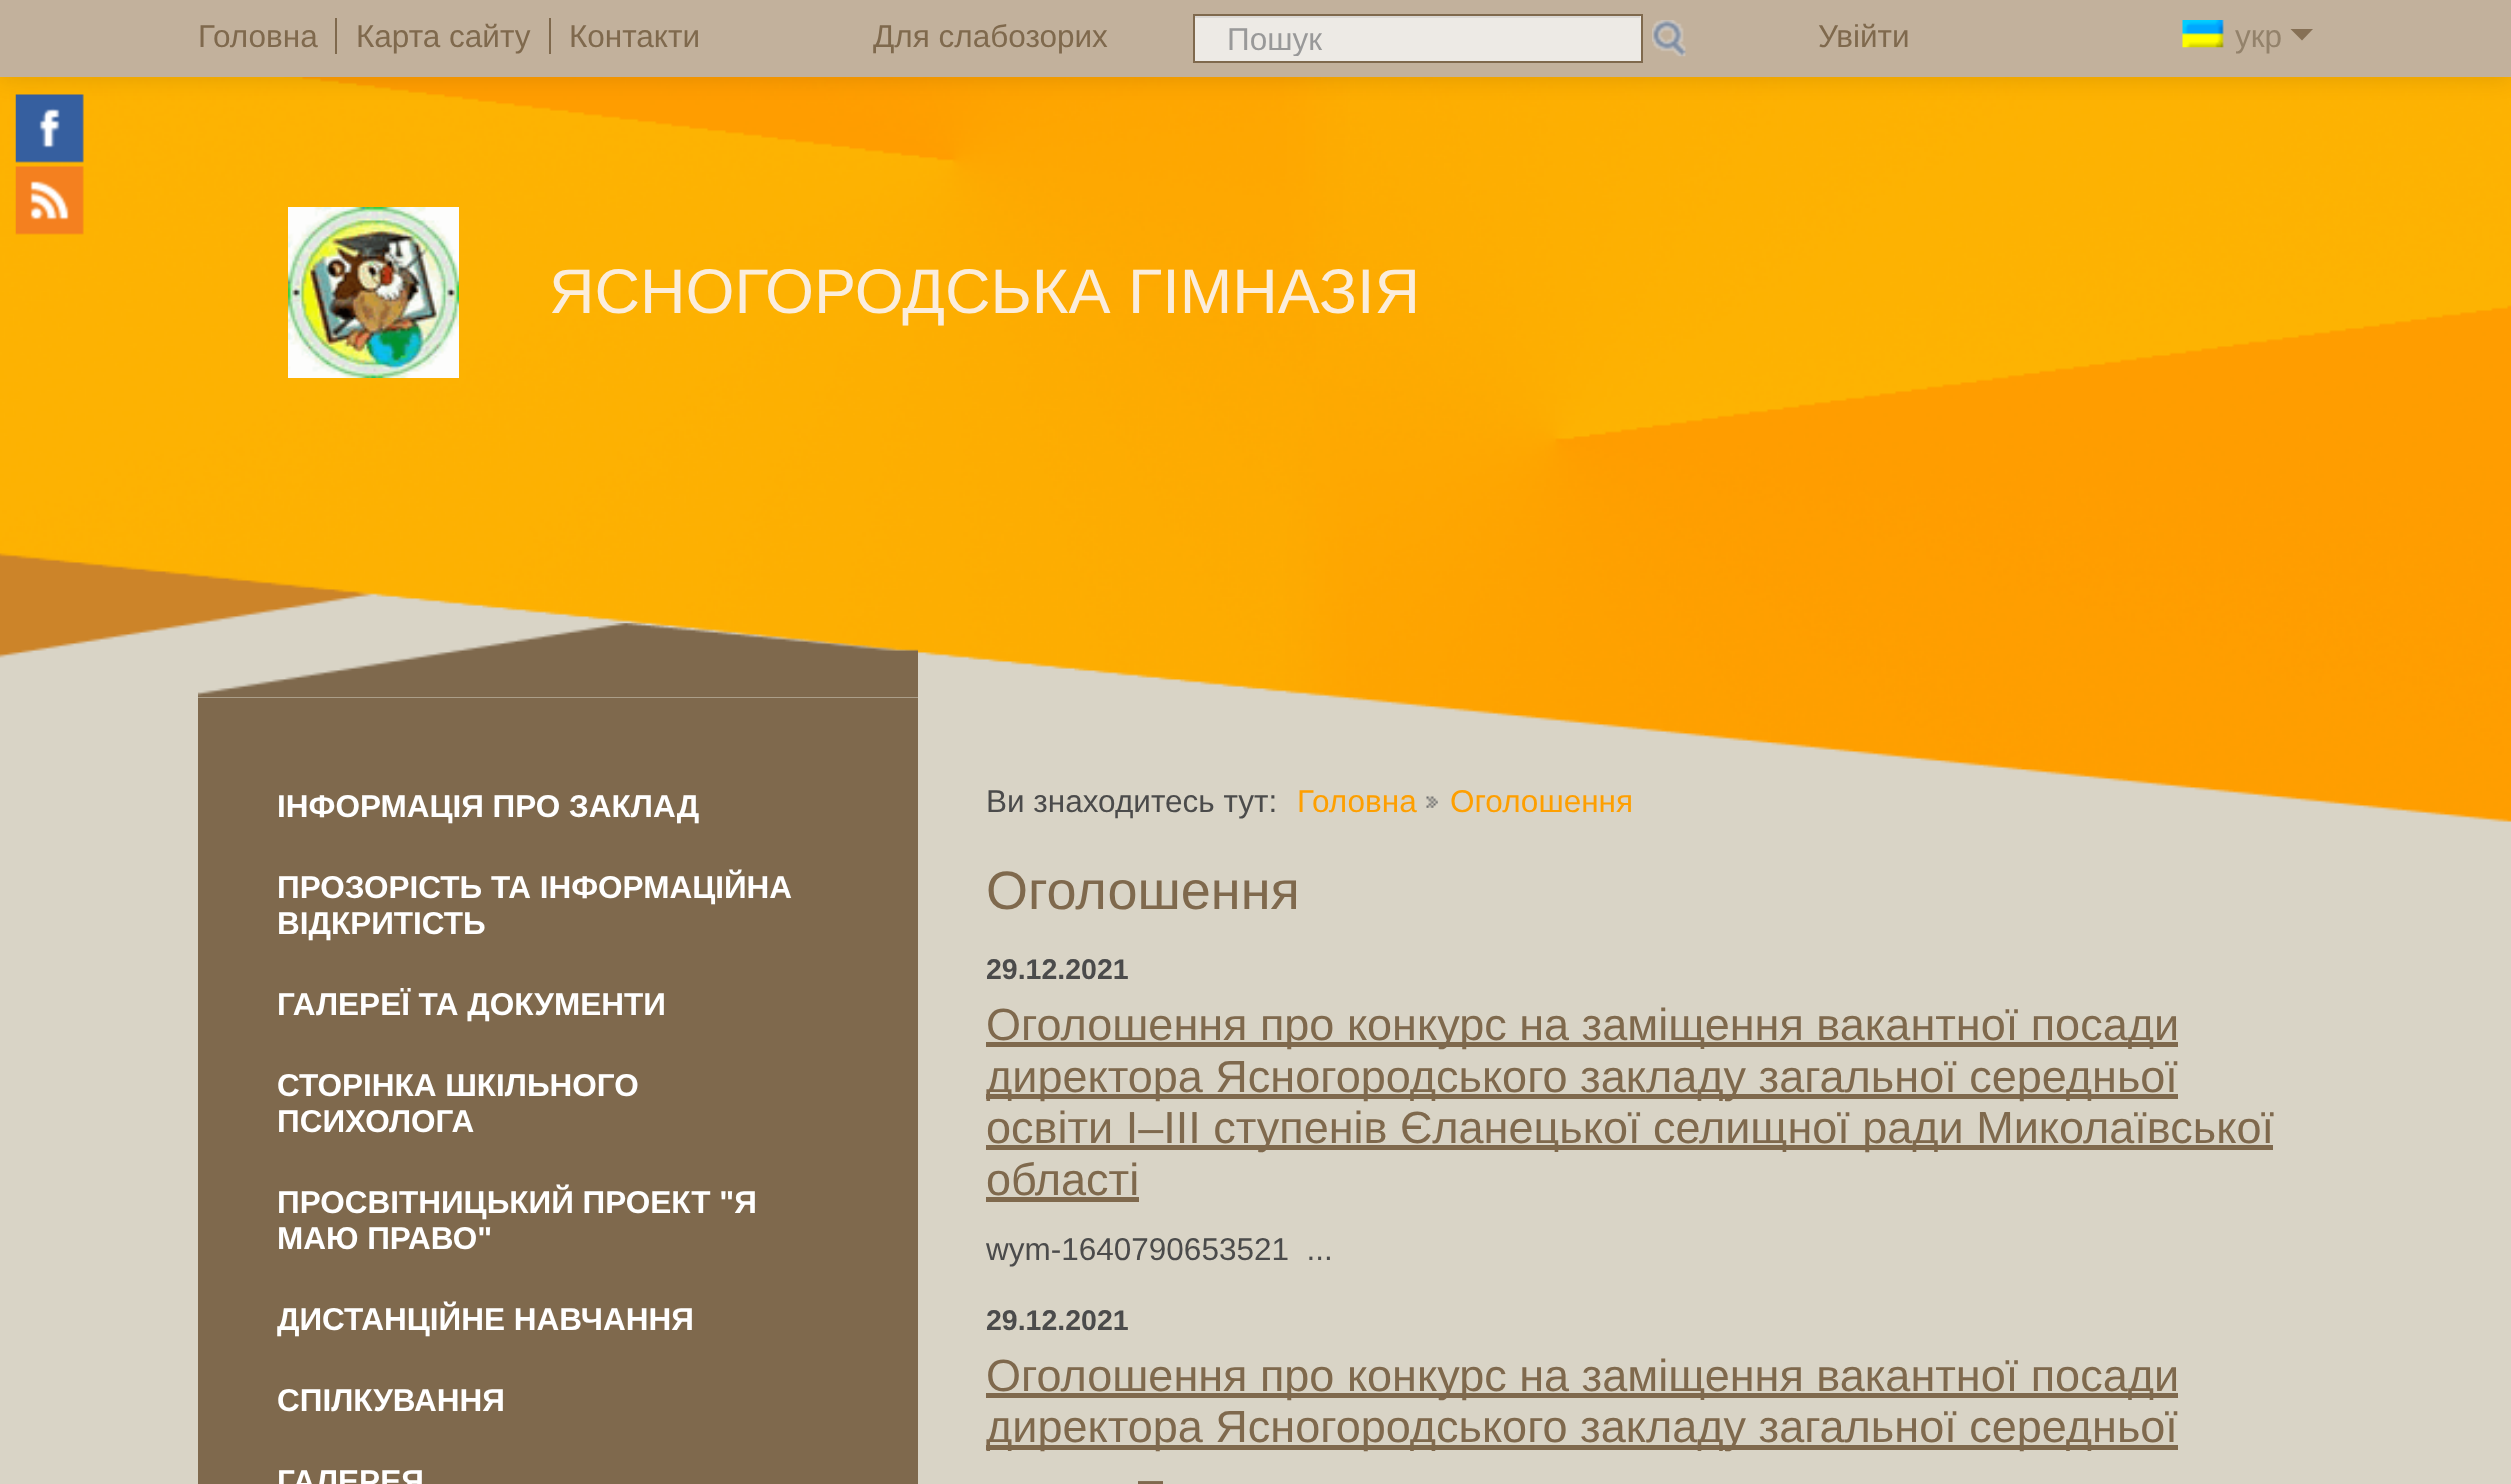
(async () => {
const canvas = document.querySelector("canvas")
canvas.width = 2511
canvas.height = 1484
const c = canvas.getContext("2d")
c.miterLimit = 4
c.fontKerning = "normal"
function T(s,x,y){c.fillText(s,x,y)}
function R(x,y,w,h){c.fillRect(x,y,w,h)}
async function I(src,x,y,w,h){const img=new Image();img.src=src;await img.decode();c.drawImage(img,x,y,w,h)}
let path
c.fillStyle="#d9d4c6"
R(0,0,2511,1484)
await I("3.png",0,77,2511,745)
await I("1.png",15,94,69,69)
await I("2.png",15,166,69,69)
c.fillStyle="#0000001a"
c.filter="blur(11px)"
c.beginPath()
c.rect(0,2,2511,77)
c.fill()
c.filter="none"
c.fillStyle="#c2b19c"
R(0,0,2511,77)
c.font="31.5px Liberation Sans"
c.fillStyle="#7f694d"
T("Головна",198,47)
R(335,18,2,36)
T("Карта сайту",356,47)
R(549,18,2,36)
T("Контакти",569,47)
T("Для слабозорих",873,47)
c.fillStyle="#edeae5"
R(1195,16,446,45)
c.fillStyle="#dbd8d4"
R(1195,16,445,2)
c.strokeStyle="#7f694d"
c.lineWidth=2
c.strokeRect(1194,15,448,47)
c.save()
c.beginPath()
c.rect(1226,20,383,36)
c.clip()
c.fillStyle="#999"
T("Пошук",1227,50)
c.restore()
await I("4.png",1652,20,34,37)
c.fillStyle="#7f694d"
T("Увійти",1818,47)
await I("5.png",2182,20,42,28)
c.fillStyle="#93826b"
T("укр",2235,47)
c.fillStyle="#867055"
path = new Path2D("M2290.5 29h22.5l-11 11.5z")
c.fill(path)
await I("6.png",288,207,171,171)
c.font="63px Liberation Sans"
c.fillStyle="#fbeddc"
T("ЯСНОГОРОДСЬКА ГІМНАЗІЯ",549,313)
await I("7.png",198,623,720,75)
c.fillStyle="#7f694d"
R(198,698,720,786)
c.font="bold 31.5px Liberation Sans"
c.fillStyle="#fff"
T("ІНФОРМАЦІЯ ПРО ЗАКЛАД",277,817)
T("ПРОЗОРІСТЬ ТА ІНФОРМАЦІЙНА",277,898)
T("ВІДКРИТІСТЬ",277,934)
T("ГАЛЕРЕЇ ТА ДОКУМЕНТИ",277,1015)
T("СТОРІНКА ШКІЛЬНОГО",277,1096)
T("ПСИХОЛОГА",277,1132)
T("ПРОСВІТНИЦЬКИЙ ПРОЕКТ \"Я",277,1213)
T("МАЮ ПРАВО\"",277,1249)
T("ДИСТАНЦІЙНЕ НАВЧАННЯ",277,1330)
T("СПІЛКУВАННЯ",277,1411)
T("ГАЛЕРЕЯ",277,1492)
c.font="31.5px Liberation Sans"
c.fillStyle="#4b4b4b"
T("Ви знаходитесь тут:",986,812)
c.fillStyle="#fe9f00"
T("Головна",1297,812)
await I("8.png",1426,796,12,12)
T("Оголошення",1450,812)
c.font="54px Liberation Sans"
c.fillStyle="#7f694d"
T("Оголошення",986,909)
c.font="bold 28.5px Liberation Sans"
c.fillStyle="#4b4b4b"
T("29.12.2021",986,979)
c.fillStyle="#7f694d"
R(986,1042,1192,5)
c.font="45px Liberation Sans"
T("Оголошення про конкурс на заміщення вакантної посади",986,1040)
R(986,1094,1192,5)
c.save()
c.beginPath()
c.rect(986,623,1327,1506)
c.clip()
T("директора Ясногородського закладу загальної середньої",986,1092)
c.restore()
R(986,1145,1287,5)
T("освіти І–ІІІ ступенів Єланецької селищної ради Миколаївської",986,1143)
T("області",986,1195)
R(986,1197,153,5)
c.font="31.5px Liberation Sans"
c.fillStyle="#4b4b4b"
T("wym-1640790653521  ...",986,1260)
c.font="bold 28.5px Liberation Sans"
T("29.12.2021",986,1330)
c.fillStyle="#7f694d"
R(986,1393,1192,5)
c.font="45px Liberation Sans"
T("Оголошення про конкурс на заміщення вакантної посади",986,1391)
R(986,1445,1192,5)
c.save()
c.beginPath()
c.rect(986,623,1327,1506)
c.clip()
T("директора Ясногородського закладу загальної середньої",986,1442)
c.restore()
T("–",1138,1494)
})()
